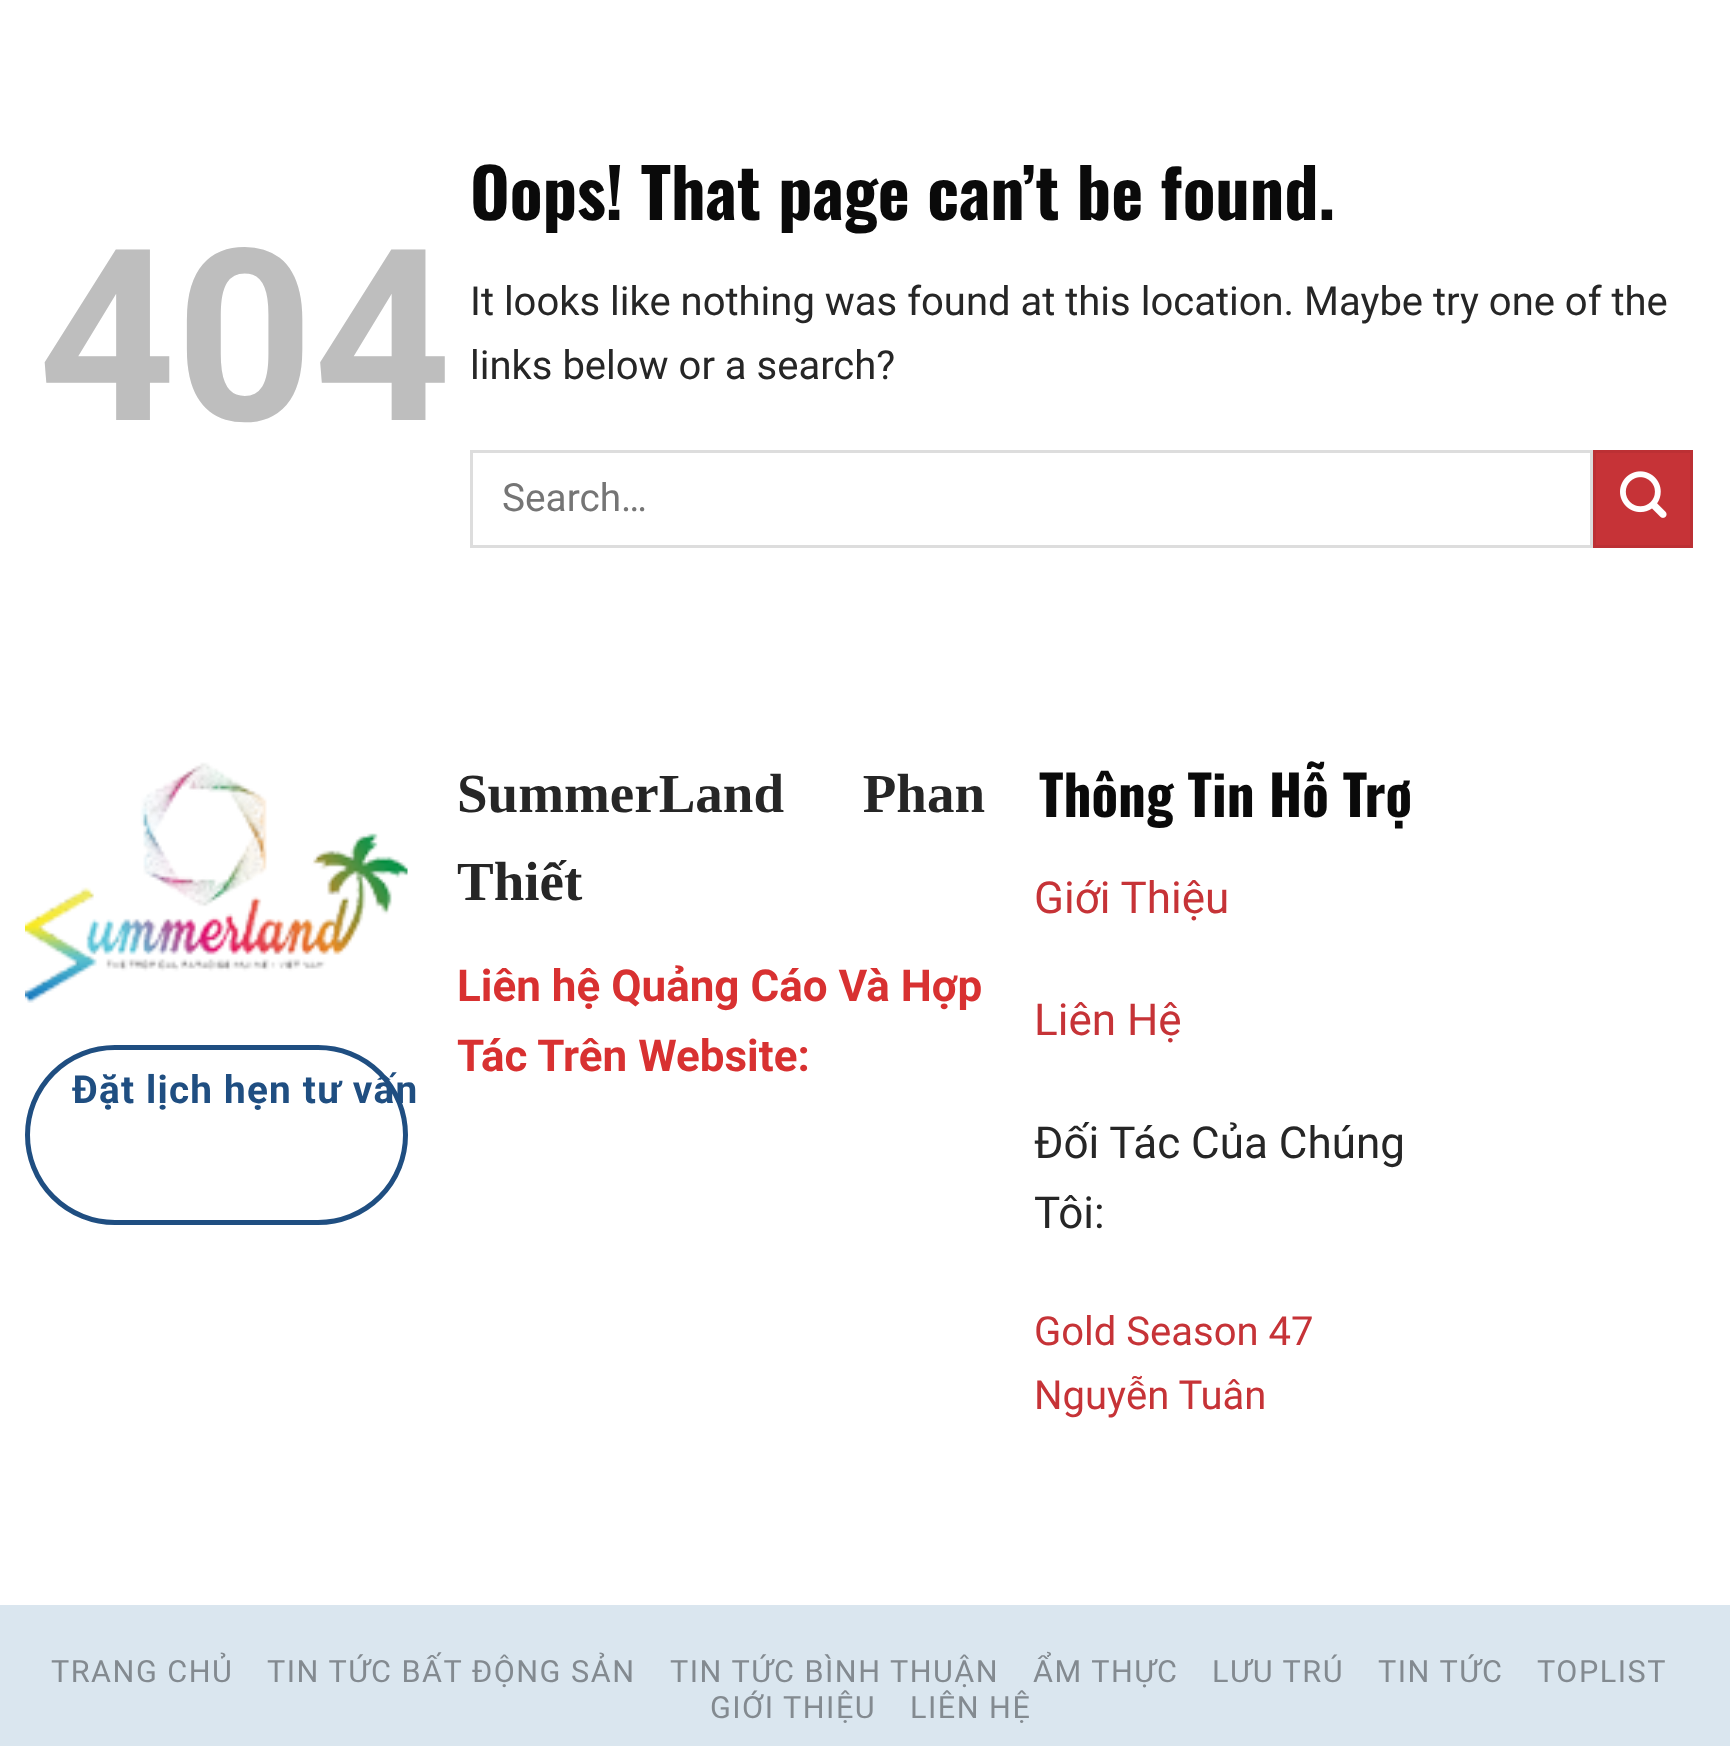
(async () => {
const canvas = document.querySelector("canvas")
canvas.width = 1730
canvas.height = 1746
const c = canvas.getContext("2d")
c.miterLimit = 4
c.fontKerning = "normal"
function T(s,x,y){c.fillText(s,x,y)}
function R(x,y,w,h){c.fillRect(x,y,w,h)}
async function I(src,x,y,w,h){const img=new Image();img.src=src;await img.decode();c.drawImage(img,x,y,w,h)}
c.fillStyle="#fff"
R(0,0,1730,1746)
c.font="bold 240px Roboto"
c.fillStyle="#bebebe"
T("404",38,420)
c.font="bold 68px Oswald"
c.fillStyle="#0a0a0a"
T("Oops! That page can’t be found.",470,220)
c.font="40px Roboto"
c.fillStyle="#262626"
T("It looks like nothing was found at this location. Maybe try one of the",470,315)
T("links below or a search?",470,379)
c.strokeStyle="#ddd"
c.lineWidth=3
c.strokeRect(471.5,451.5,1120,95)
c.font="38.75px Roboto"
c.fillStyle="#757575"
T("Search…",502,511)
c.fillStyle="#c63337"
c.beginPath()
c.rect(1594.5,451.5,97,95)
c.fill()
c.strokeStyle="#bc3034"
c.stroke()
await I("1.png",1620,471,47,47)
c.wordSpacing="65px"
c.font="bold 55px Liberation Serif"
c.fillStyle="#262626"
T("SummerLand Phan",457,812)
c.wordSpacing="0px"
T("Thiết",457,900)
c.font="bold 44px Roboto"
c.fillStyle="#d83131"
T("Liên hệ Quảng Cáo Và Hợp",457,1001)
T("Tác Trên Website:",457,1071)
c.font="bold 55px Oswald"
c.fillStyle="#0a0a0a"
T("Thông Tin Hỗ Trợ",1039,817)
c.font="44px Roboto"
c.fillStyle="#c63337"
T("Giới Thiệu",1034,913)
T("Liên Hệ",1034,1035)
c.fillStyle="#262626"
T("Đối Tác Của Chúng",1034,1158)
T("Tôi:",1034,1228)
c.font="40px Roboto"
c.fillStyle="#c63337"
T("Gold Season 47",1034,1345)
T("Nguyễn Tuân",1034,1409)
await I("2.png",25,762,383,241)
c.beginPath()
c.roundRect(27.5,1047.5,378,175,87.5)
c.strokeStyle="#1f4e81"
c.lineWidth=5
c.stroke()
c.letterSpacing="1.2px"
c.font="bold 38.75px Roboto"
c.fillStyle="#1f4e81"
T("Đặt lịch hẹn tư vấn",72,1103)
c.fillStyle="#dae6ef"
R(0,1605,1730,141)
c.letterSpacing="1.5px"
c.font="30.6px Roboto"
c.fillStyle="#838a90"
T("TRANG CHỦ",51,1682)
T("TIN TỨC BẤT ĐỘNG SẢN",267,1682)
T("TIN TỨC BÌNH THUẬN",670,1682)
T("ẨM THỰC",1033,1682)
T("LƯU TRÚ",1212,1682)
T("TIN TỨC",1378,1682)
T("TOPLIST",1537,1682)
T("GIỚI THIỆU",710,1718)
T("LIÊN HỆ",910,1718)
})()
